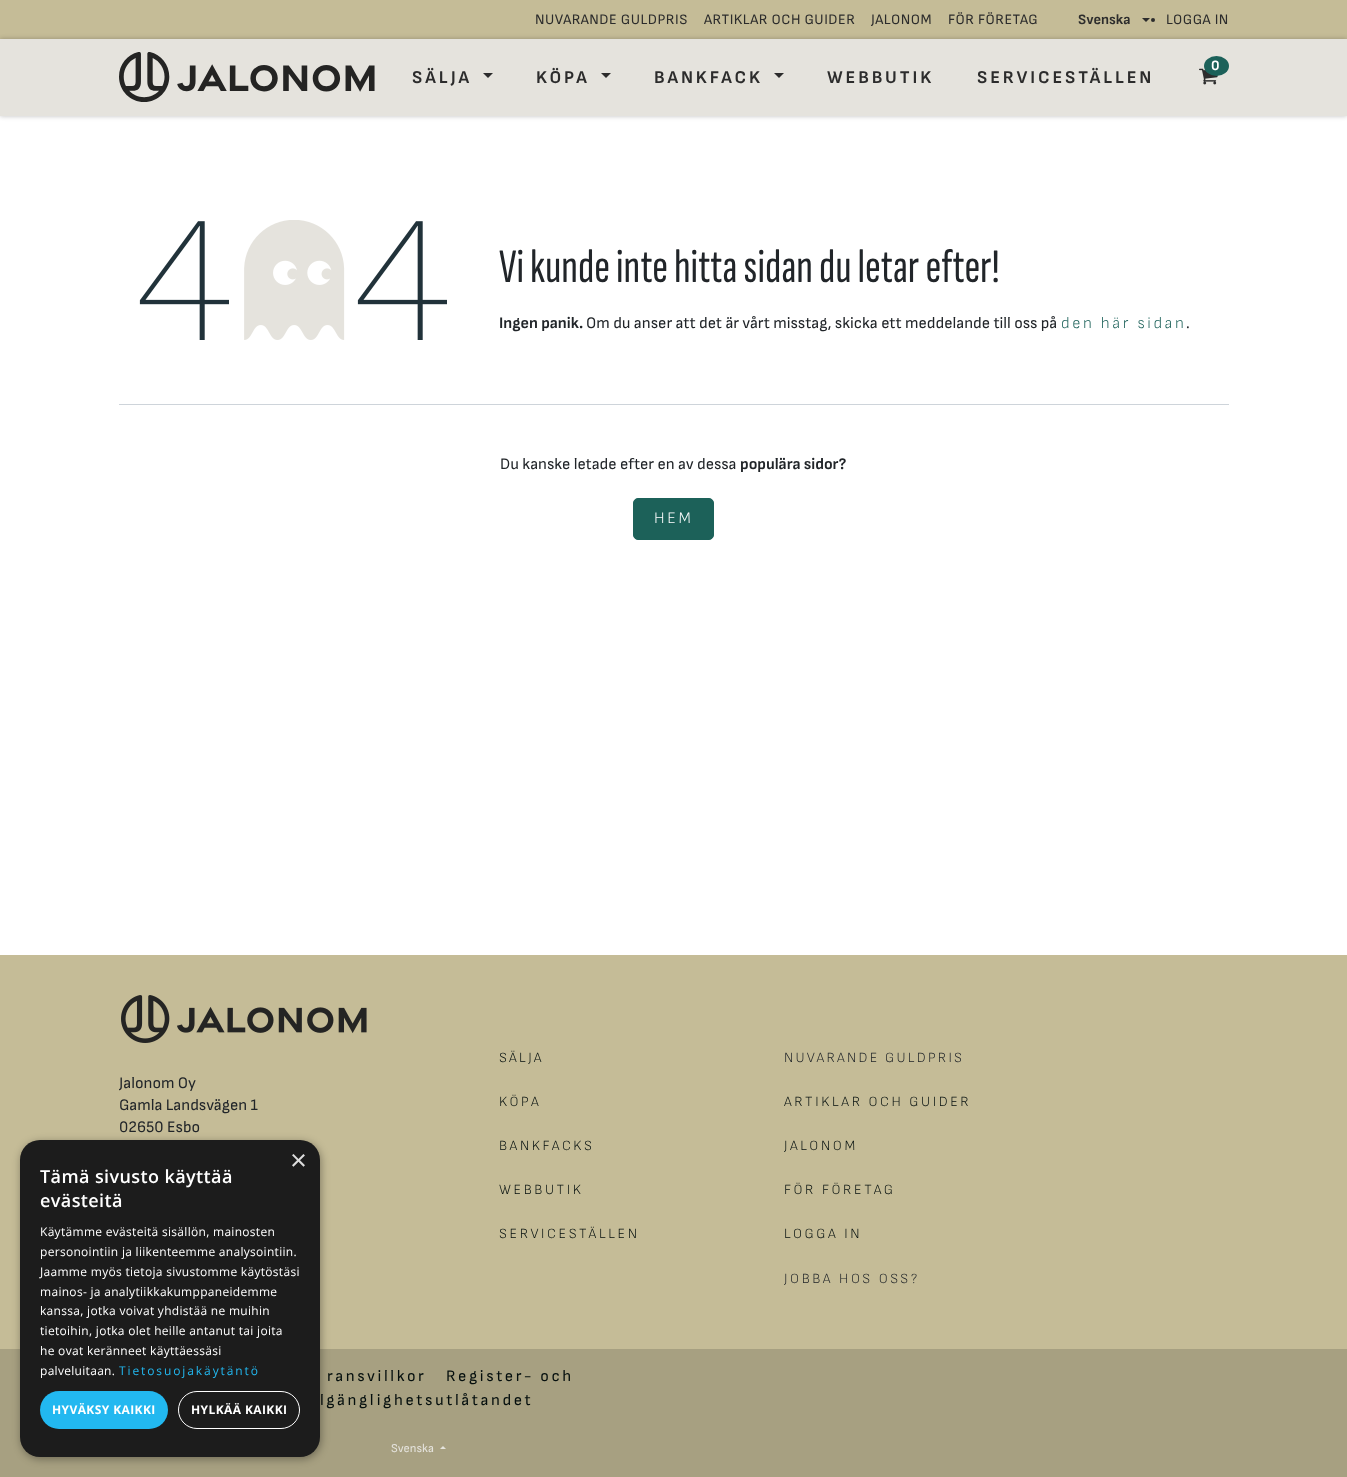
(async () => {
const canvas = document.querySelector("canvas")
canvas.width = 1347
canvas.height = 1477
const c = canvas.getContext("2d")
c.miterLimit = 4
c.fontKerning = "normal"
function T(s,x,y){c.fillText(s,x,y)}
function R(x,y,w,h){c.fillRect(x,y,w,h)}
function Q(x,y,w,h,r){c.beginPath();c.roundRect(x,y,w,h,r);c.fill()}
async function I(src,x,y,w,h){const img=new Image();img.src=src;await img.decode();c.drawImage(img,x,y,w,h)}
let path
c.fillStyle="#fff"
R(0,0,1347,1477)
c.fillStyle="#c5bc97"
R(0,0,1347,39)
c.letterSpacing="0.5px"
c.font="14.4px Sofia Sans"
c.fillStyle="#2c2c2c"
T("NUVARANDE GULDPRIS",535,24)
T("ARTIKLAR OCH GUIDER",704,24)
T("JALONOM",871,24)
T("FÖR FÖRETAG",948,24)
c.letterSpacing="0px"
c.font="bold 14.4px Sofia Sans"
T("Svenska",1078,24)
path = new Path2D("M1142 18h8l-4 4z")
c.fill(path)
c.beginPath()
c.arc(1153,20,2,0,7)
c.fill()
c.letterSpacing="0.5px"
c.font="14.4px Sofia Sans"
T("LOGGA IN",1166,24)
c.fillStyle="#00000040"
c.filter="blur(2.5px)"
c.beginPath()
c.rect(0,39,1347,77)
c.fill()
c.filter="none"
c.fillStyle="#e5e3dd"
R(0,39,1347,77)
await I("1.png",119,52,256,50)
await I("2.png",1199,68,19,17)
c.fillStyle="#1c6159"
c.beginPath()
c.ellipse(1216.5,66,12.5,10,0,0,7)
c.fill()
c.letterSpacing="2.9px"
c.font="bold 14.4px Sofia Sans"
c.fillStyle="#fff"
T("0",1211,70)
c.font="bold 18px Sofia Sans"
c.fillStyle="#2c2c2c"
T("SÄLJA",412,83)
path = new Path2D("M483 73h10l-5 5z")
c.fill(path)
T("KÖPA",536,83)
path = new Path2D("M601 73h10l-5 5z")
c.fill(path)
T("BANKFACK",654,83)
path = new Path2D("M774 73h10l-5 5z")
c.fill(path)
T("WEBBUTIK",827,83)
T("SERVICESTÄLLEN",977,83)
await I("3.png",139,220,308,120)
c.letterSpacing="0px"
c.font="48px Sofia Sans Extra Condensed"
c.fillStyle="#212529"
T("Vi kunde inte hitta sidan du letar efter!",499,282)
c.font="bold 16px Sofia Sans"
T("Ingen panik.",499,328)
c.font="16px Sofia Sans"
T("Om du anser att det är vårt misstag, skicka ett meddelande till oss på",586,328)
c.letterSpacing="2.6px"
c.font="300 16px Sofia Sans"
c.fillStyle="#1c6159"
T("den här sidan",1061,328)
c.letterSpacing="0px"
c.font="16px Sofia Sans"
c.fillStyle="#212529"
T(".",1186,328)
c.fillStyle="#ced4da"
R(119,404,1110,1)
c.fillStyle="#212529"
T("Du kanske letade efter en av dessa",500,469)
c.font="bold 16px Sofia Sans"
T("populära sidor?",740,469)
c.fillStyle="#1c6159"
c.beginPath()
c.roundRect(633.5,498.5,80,41,4.5)
c.fill()
c.strokeStyle="#1c6159"
c.stroke()
c.letterSpacing="2.6px"
c.font="300 16px Sofia Sans"
c.fillStyle="#fff"
T("HEM",654,523)
c.fillStyle="#c5bc97"
R(0,955,1347,394)
await I("4.png",121,995,246,48)
c.letterSpacing="0px"
c.font="16px Sofia Sans"
c.fillStyle="#212529"
T("Jalonom Oy",119,1088)
T("Gamla Landsvägen 1",119,1110)
T("02650 Esbo",119,1132)
c.letterSpacing="2.25px"
c.font="300 14px Sofia Sans"
c.fillStyle="#040e0d"
T("SÄLJA",499,1062)
c.letterSpacing="2.6px"
T("KÖPA",499,1106)
T("BANKFACKS",499,1150)
T("WEBBUTIK",499,1194)
T("SERVICESTÄLLEN",499,1238)
c.letterSpacing="2.25px"
c.fillStyle="#212529"
T("NUVARANDE GULDPRIS",784,1062)
c.letterSpacing="2.6px"
c.fillStyle="#040e0d"
T("ARTIKLAR OCH GUIDER",784,1106)
T("JALONOM",784,1150)
T("FÖR FÖRETAG",784,1194)
T("LOGGA IN",784,1238)
c.fillStyle="#212529"
T("JOBBA HOS OSS?",784,1283)
c.fillStyle="#a7a081"
R(0,1349,1347,128)
c.font="16px Sofia Sans"
c.fillStyle="#040e0d"
T("ransvillkor",327,1381)
T("Register- och",446,1381)
T("lgänglighetsutlåtandet",320,1405)
c.letterSpacing="0px"
c.font="12px Sofia Sans"
c.fillStyle="#e5e3dd"
T("Svenska",391,1452)
path = new Path2D("M446 1449h-6l3-3z")
c.fill(path)
c.fillStyle="#00000059"
c.filter="blur(4px)"
c.beginPath()
c.roundRect(21,1142,300,317,20)
c.fill()
c.filter="none"
c.fillStyle="#1c1c1c"
Q(20,1140,300,317,20)
c.font="29px Liberation Sans"
c.fillStyle="#ddd"
T("×",290,1170)
c.letterSpacing="0.4px"
c.font="600 18px Open Sans"
c.fillStyle="#fff"
T("Tämä sivusto käyttää",40,1183)
T("evästeitä",40,1207)
c.letterSpacing="0.3px"
c.font="12px Open Sans"
T("Käytämme evästeitä sisällön, mainosten",40,1236)
T("personointiin ja liikenteemme analysointiin.",40,1256)
T("Jaamme myös tietoja sivustomme käytöstäsi",40,1276)
T("mainos- ja analytiikkakumppaneidemme",40,1296)
T("kanssa, jotka voivat yhdistää ne muihin",40,1315)
T("tietoihin, jotka olet heille antanut tai joita",40,1335)
T("he ovat keränneet käyttäessäsi",40,1355)
T("palveluitaan.",40,1375)
c.letterSpacing="1.9px"
c.fillStyle="#22b8f0"
T("Tietosuojakäytäntö",119,1375)
Q(40,1391,128,38,19)
c.letterSpacing="0.4px"
c.font="bold 12px Open Sans"
c.fillStyle="#fff"
T("HYVÄKSY KAIKKI",52,1414)
c.beginPath()
c.roundRect(178.5,1391.5,121,37,18.5)
c.strokeStyle="#fff"
c.stroke()
T("HYLKÄÄ KAIKKI",191,1414)
})()
